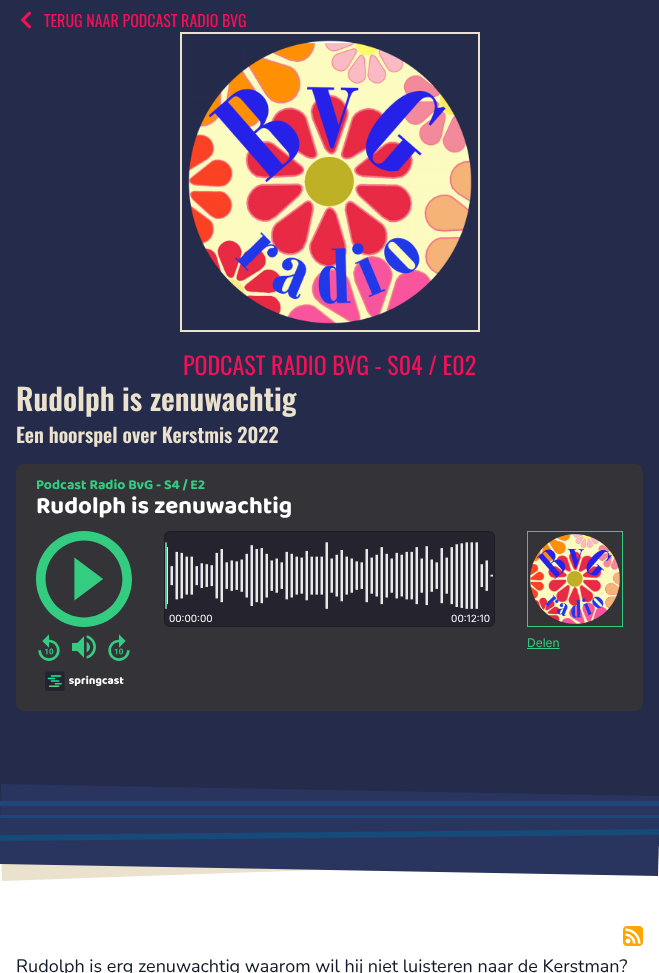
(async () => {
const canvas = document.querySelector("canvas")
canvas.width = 659
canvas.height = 973
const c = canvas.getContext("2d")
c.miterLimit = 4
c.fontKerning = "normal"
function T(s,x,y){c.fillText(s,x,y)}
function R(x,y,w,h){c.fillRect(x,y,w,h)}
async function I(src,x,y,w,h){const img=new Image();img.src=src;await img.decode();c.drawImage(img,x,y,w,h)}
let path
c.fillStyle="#fff"
R(0,0,659,973)
c.fillStyle="#242b4b"
R(0,0,659,686)
await I("1.png",20,11,12,18)
c.font="16px Oswald"
c.fillStyle="#f41057"
T("TERUG NAAR PODCAST RADIO BVG",44,27)
await I("2.png",188,40,284,284)
c.strokeStyle="#ebe2ce"
c.lineWidth=2
c.strokeRect(181,33,298,298)
c.font="24px Oswald"
T("PODCAST RADIO BVG - S04 / E02",183,375)
c.font="600 30px Oswald"
c.fillStyle="#ebe2ce"
T("Rudolph is zenuwachtig",16,411)
c.font="600 20px Oswald"
T("Een hoorspel over Kerstmis 2022",16,443)
path = new Path2D("M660 858l-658 23l-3-79l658-23z")
c.fill(path)
c.fillStyle="#242b4b"
R(0,686,659,160)
await I("3.png",16,464,627,247)
c.fillStyle="#2a355f"
path = new Path2D("M1 784l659 12l-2 80l-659-12z")
c.fill(path)
c.fillStyle="#164a79"
R(0,801,659,5)
R(0,815,659,3)
path = new Path2D("M0 835l659-6v6l-659 6z")
c.fill(path)
await I("4.png",623,926,20,20)
c.font="18px Nunito"
c.fillStyle="#111827"
T("Rudolph is erg zenuwachtig waarom wil hij niet luisteren naar de Kerstman?",16,972)
})()
